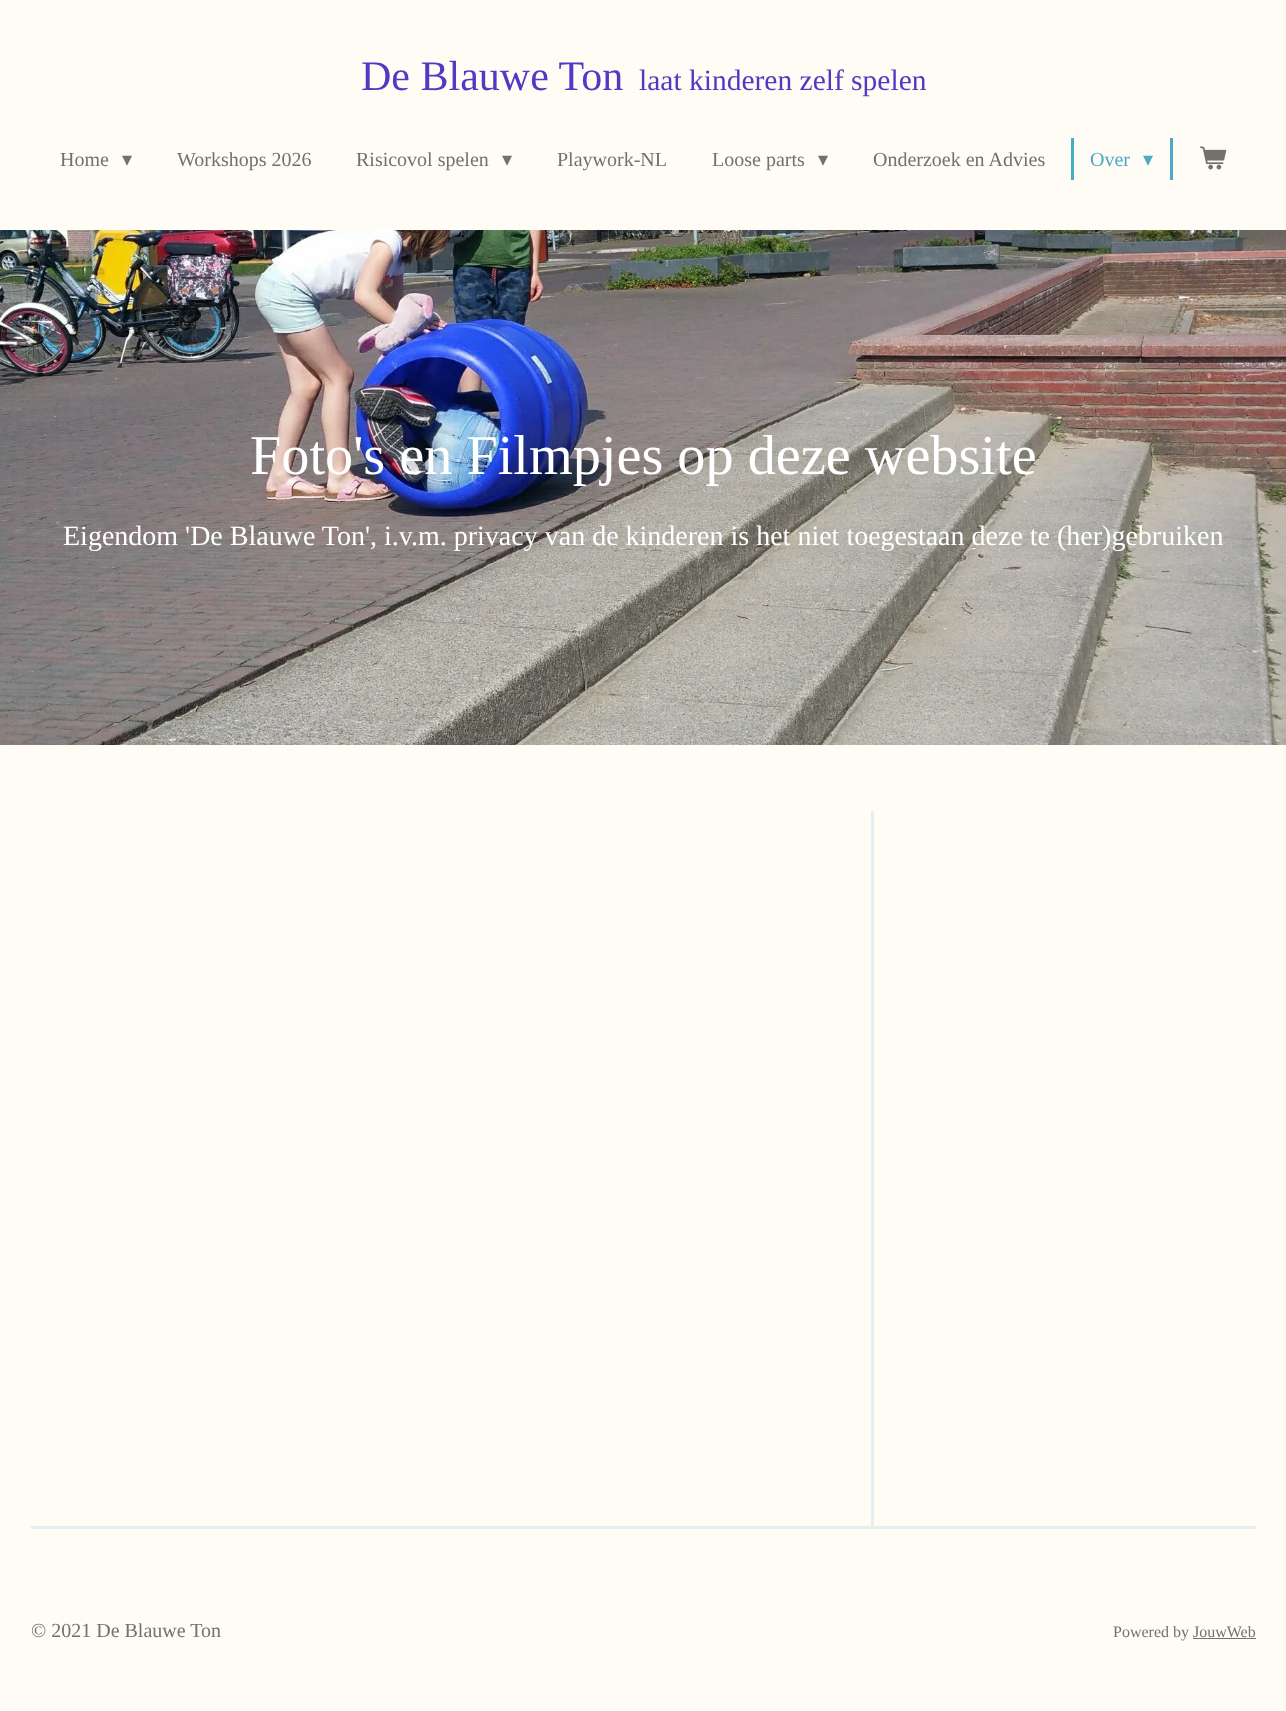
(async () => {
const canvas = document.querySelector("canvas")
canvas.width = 1286
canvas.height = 1711
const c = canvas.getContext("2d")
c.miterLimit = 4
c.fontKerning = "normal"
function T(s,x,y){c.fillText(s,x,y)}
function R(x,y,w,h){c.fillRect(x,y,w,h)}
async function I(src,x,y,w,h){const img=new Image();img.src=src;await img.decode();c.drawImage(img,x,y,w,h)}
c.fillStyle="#fffcf5"
R(0,0,1286,1711)
c.font="42px Liberation Serif"
c.fillStyle="#4e3ac4"
T("De Blauwe Ton",361,90)
c.font="29.5px Liberation Serif"
T("laat kinderen zelf spelen",639,90)
c.font="20px Liberation Serif"
c.fillStyle="#73716e"
T("Home",60,166)
c.font="20px DejaVu Sans"
T("▾",122,166)
c.font="20px Liberation Serif"
T("Workshops 2026",177,166)
T("Risicovol spelen",356,166)
c.font="20px DejaVu Sans"
T("▾",502,166)
c.font="20px Liberation Serif"
T("Playwork-NL",557,166)
T("Loose parts",712,166)
c.font="20px DejaVu Sans"
T("▾",818,166)
c.font="20px Liberation Serif"
T("Onderzoek en Advies",873,166)
c.fillStyle="#4caac9"
R(1170,138,3,42)
R(1071,138,3,42)
T("Over",1090,166)
c.font="20px DejaVu Sans"
T("▾",1143,166)
await I("1.png",1200,146,27,24)
await I("2.png",0,230,1286,515)
c.font="56.25px Liberation Serif"
c.fillStyle="#fff"
T("Foto's en Filmpjes op deze website",250,474)
c.font="28px Liberation Serif"
T("Eigendom 'De Blauwe Ton', i.v.m. privacy van de kinderen is het niet toegestaan deze te (her)gebruiken",63,545)
c.fillStyle="#e4f0ee"
R(871,811,3,715)
R(31,1526,1225,3)
c.font="20px Liberation Serif"
c.fillStyle="#73716e"
T("© 2021 De Blauwe Ton",31,1637)
c.font="16px Liberation Serif"
T("Powered by JouwWeb",1113,1637)
R(1193,1638,63,1)
})()
